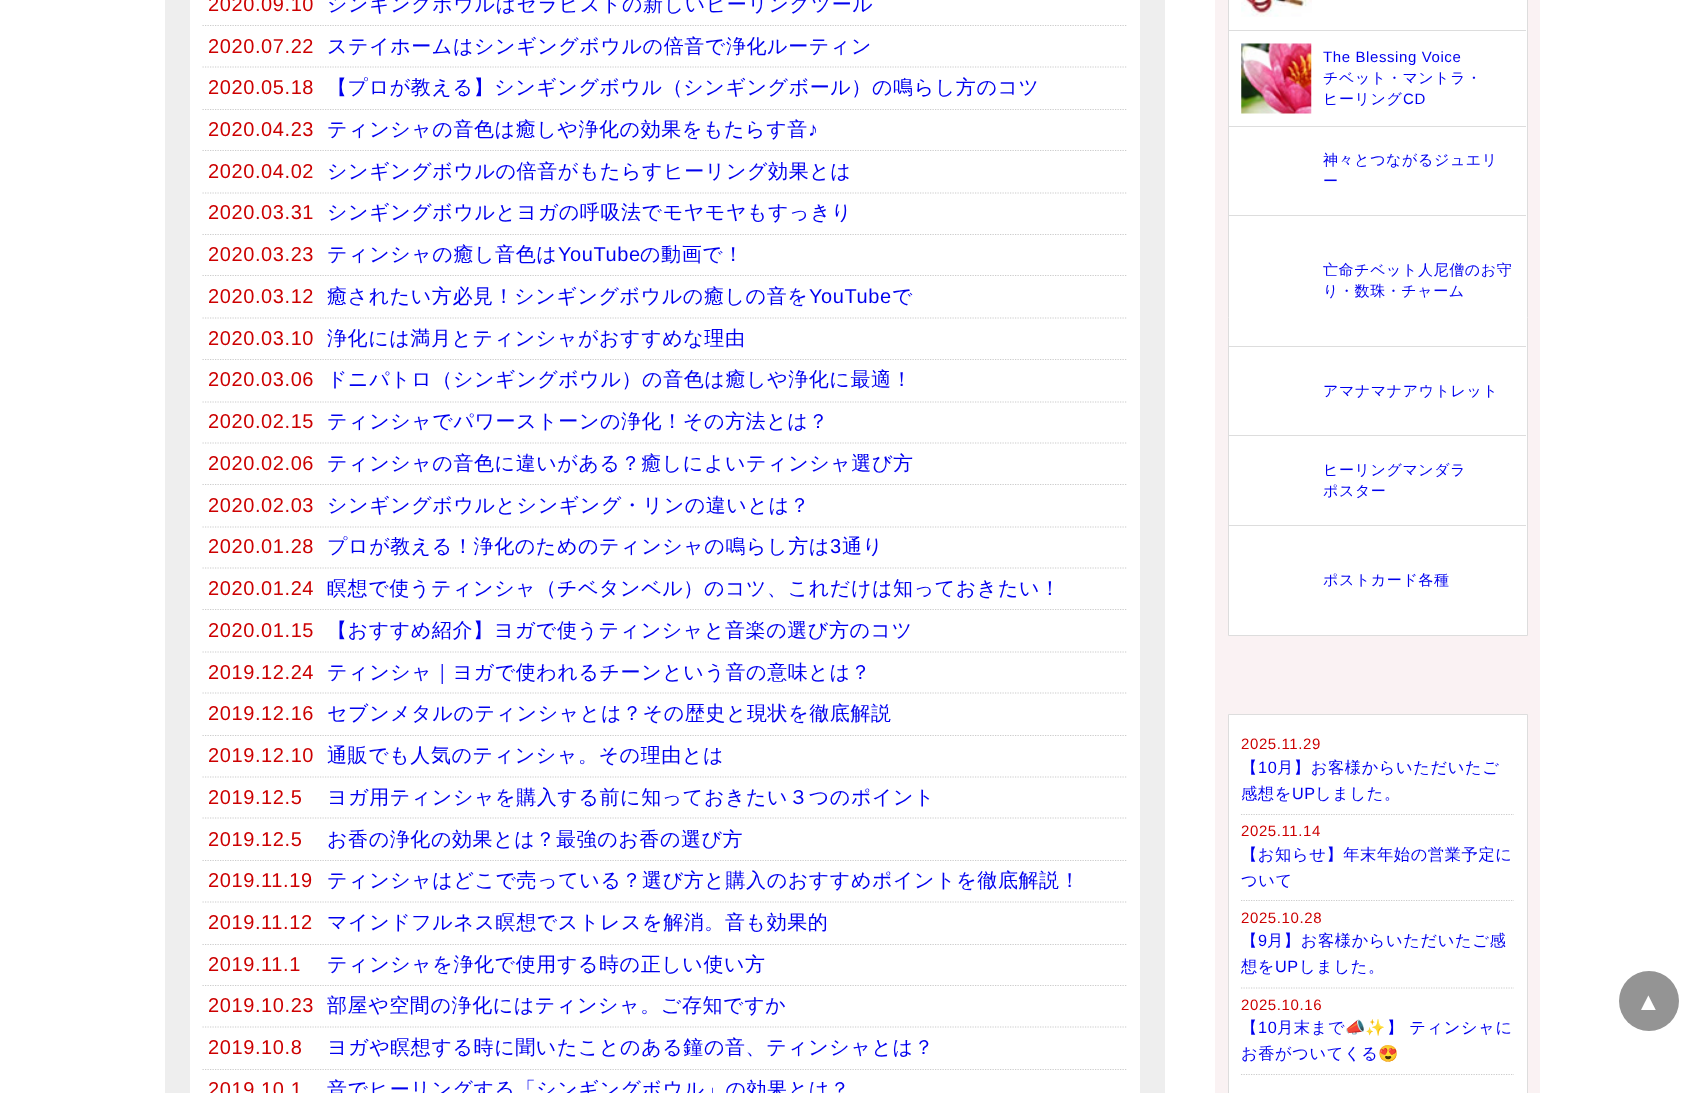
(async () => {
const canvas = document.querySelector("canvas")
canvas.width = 1703
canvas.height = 1093
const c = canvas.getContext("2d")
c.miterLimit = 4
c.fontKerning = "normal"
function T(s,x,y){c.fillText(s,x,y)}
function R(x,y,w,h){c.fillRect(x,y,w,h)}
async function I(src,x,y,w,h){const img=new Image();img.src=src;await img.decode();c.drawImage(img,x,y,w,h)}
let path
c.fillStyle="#fff"
R(0,0,1703,1093)
c.fillStyle="#eee"
R(165,0,1000,1093)
c.fillStyle="#fff"
R(190,0,950,1093)
c.letterSpacing="0.6px"
c.font="20px Liberation Sans"
c.fillStyle="#c00"
T("2020.09.10",208,11)
path = new Path2D("M202.5 25.5h925")
c.strokeStyle="#ccc"
c.lineWidth=1.2
c.setLineDash([1.25,1.25])
c.stroke(path)
c.font="500 20px WenQuanYi Zen Hei"
c.fillStyle="#00e"
T("シンギングボウルはセラピストの新しいヒーリングツール",327,11)
c.font="20px Liberation Sans"
c.fillStyle="#c00"
T("2020.07.22",208,53)
path = new Path2D("M202.5 67h925")
c.stroke(path)
c.font="500 20px WenQuanYi Zen Hei"
c.fillStyle="#00e"
T("ステイホームはシンギングボウルの倍音で浄化ルーティン",327,53)
c.font="20px Liberation Sans"
c.fillStyle="#c00"
T("2020.05.18",208,94)
path = new Path2D("M202.5 109.5h925")
c.stroke(path)
c.font="500 20px WenQuanYi Zen Hei"
c.fillStyle="#00e"
T("【プロが教える】シンギングボウル（シンギングボール）の鳴らし方のコツ",327,94)
c.font="20px Liberation Sans"
c.fillStyle="#c00"
T("2020.04.23",208,136)
path = new Path2D("M202.5 150.5h925")
c.stroke(path)
c.font="500 20px WenQuanYi Zen Hei"
c.fillStyle="#00e"
T("ティンシャの音色は癒しや浄化の効果をもたらす音",327,136)
c.font="20px Liberation Sans"
T("♪",808,136)
c.fillStyle="#c00"
T("2020.04.02",208,178)
path = new Path2D("M202.5 193h925")
c.stroke(path)
c.font="500 20px WenQuanYi Zen Hei"
c.fillStyle="#00e"
T("シンギングボウルの倍音がもたらすヒーリング効果とは",327,178)
c.font="20px Liberation Sans"
c.fillStyle="#c00"
T("2020.03.31",208,219)
path = new Path2D("M202.5 234.5h925")
c.stroke(path)
c.font="500 20px WenQuanYi Zen Hei"
c.fillStyle="#00e"
T("シンギングボウルとヨガの呼吸法でモヤモヤもすっきり",327,219)
c.font="20px Liberation Sans"
c.fillStyle="#c00"
T("2020.03.23",208,261)
path = new Path2D("M202.5 275.5h925")
c.stroke(path)
c.font="500 20px WenQuanYi Zen Hei"
c.fillStyle="#00e"
T("ティンシャの癒し音色は",327,261)
c.font="20px Liberation Sans"
T("YouTube",558,261)
c.font="500 20px WenQuanYi Zen Hei"
T("の動画で！",640,261)
c.font="20px Liberation Sans"
c.fillStyle="#c00"
T("2020.03.12",208,303)
path = new Path2D("M202.5 318h925")
c.stroke(path)
c.font="500 20px WenQuanYi Zen Hei"
c.fillStyle="#00e"
T("癒されたい方必見！シンギングボウルの癒しの音を",327,303)
c.font="20px Liberation Sans"
T("YouTube",809,303)
c.font="500 20px WenQuanYi Zen Hei"
T("で",892,303)
c.font="20px Liberation Sans"
c.fillStyle="#c00"
T("2020.03.10",208,345)
path = new Path2D("M202.5 359.5h925")
c.stroke(path)
c.font="500 20px WenQuanYi Zen Hei"
c.fillStyle="#00e"
T("浄化には満月とティンシャがおすすめな理由",327,345)
c.font="20px Liberation Sans"
c.fillStyle="#c00"
T("2020.03.06",208,386)
path = new Path2D("M202.5 402h925")
c.stroke(path)
c.font="500 20px WenQuanYi Zen Hei"
c.fillStyle="#00e"
T("ドニパトロ（シンギングボウル）の音色は癒しや浄化に最適！",327,386)
c.font="20px Liberation Sans"
c.fillStyle="#c00"
T("2020.02.15",208,428)
path = new Path2D("M202.5 443h925")
c.stroke(path)
c.font="500 20px WenQuanYi Zen Hei"
c.fillStyle="#00e"
T("ティンシャでパワーストーンの浄化！その方法とは？",327,428)
c.font="20px Liberation Sans"
c.fillStyle="#c00"
T("2020.02.06",208,470)
path = new Path2D("M202.5 484.5h925")
c.stroke(path)
c.font="500 20px WenQuanYi Zen Hei"
c.fillStyle="#00e"
T("ティンシャの音色に違いがある？癒しによいティンシャ選び方",327,470)
c.font="20px Liberation Sans"
c.fillStyle="#c00"
T("2020.02.03",208,512)
path = new Path2D("M202.5 527h925")
c.stroke(path)
c.font="500 20px WenQuanYi Zen Hei"
c.fillStyle="#00e"
T("シンギングボウルとシンギング・リンの違いとは？",327,512)
c.font="20px Liberation Sans"
c.fillStyle="#c00"
T("2020.01.28",208,553)
path = new Path2D("M202.5 568h925")
c.stroke(path)
c.font="500 20px WenQuanYi Zen Hei"
c.fillStyle="#00e"
T("プロが教える！浄化のためのティンシャの鳴らし方は",327,553)
c.font="20px Liberation Sans"
T("3",830,553)
c.font="500 20px WenQuanYi Zen Hei"
T("通り",842,553)
c.font="20px Liberation Sans"
c.fillStyle="#c00"
T("2020.01.24",208,595)
path = new Path2D("M202.5 609.5h925")
c.stroke(path)
c.font="500 20px WenQuanYi Zen Hei"
c.fillStyle="#00e"
T("瞑想で使うティンシャ（チベタンベル）のコツ、これだけは知っておきたい！",327,595)
c.font="20px Liberation Sans"
c.fillStyle="#c00"
T("2020.01.15",208,637)
path = new Path2D("M202.5 652h925")
c.stroke(path)
c.font="500 20px WenQuanYi Zen Hei"
c.fillStyle="#00e"
T("【おすすめ紹介】ヨガで使うティンシャと音楽の選び方のコツ",327,637)
c.font="20px Liberation Sans"
c.fillStyle="#c00"
T("2019.12.24",208,679)
path = new Path2D("M202.5 693h925")
c.stroke(path)
c.font="500 20px WenQuanYi Zen Hei"
c.fillStyle="#00e"
T("ティンシャ｜ヨガで使われるチーンという音の意味とは？",327,679)
c.font="20px Liberation Sans"
c.fillStyle="#c00"
T("2019.12.16",208,720)
path = new Path2D("M202.5 735.5h925")
c.stroke(path)
c.font="500 20px WenQuanYi Zen Hei"
c.fillStyle="#00e"
T("セブンメタルのティンシャとは？その歴史と現状を徹底解説",327,720)
c.font="20px Liberation Sans"
c.fillStyle="#c00"
T("2019.12.10",208,762)
path = new Path2D("M202.5 777h925")
c.stroke(path)
c.font="500 20px WenQuanYi Zen Hei"
c.fillStyle="#00e"
T("通販でも人気のティンシャ。その理由とは",327,762)
c.font="20px Liberation Sans"
c.fillStyle="#c00"
T("2019.12.5",208,804)
path = new Path2D("M202.5 818h925")
c.stroke(path)
c.font="500 20px WenQuanYi Zen Hei"
c.fillStyle="#00e"
T("ヨガ用ティンシャを購入する前に知っておきたい３つのポイント",327,804)
c.font="20px Liberation Sans"
c.fillStyle="#c00"
T("2019.12.5",208,846)
path = new Path2D("M202.5 860.5h925")
c.stroke(path)
c.font="500 20px WenQuanYi Zen Hei"
c.fillStyle="#00e"
T("お香の浄化の効果とは？最強のお香の選び方",327,846)
c.font="20px Liberation Sans"
c.fillStyle="#c00"
T("2019.11.19",208,887)
path = new Path2D("M202.5 902h925")
c.stroke(path)
c.font="500 20px WenQuanYi Zen Hei"
c.fillStyle="#00e"
T("ティンシャはどこで売っている？選び方と購入のおすすめポイントを徹底解説！",327,887)
c.font="20px Liberation Sans"
c.fillStyle="#c00"
T("2019.11.12",208,929)
path = new Path2D("M202.5 944.5h925")
c.stroke(path)
c.font="500 20px WenQuanYi Zen Hei"
c.fillStyle="#00e"
T("マインドフルネス瞑想でストレスを解消。音も効果的",327,929)
c.font="20px Liberation Sans"
c.fillStyle="#c00"
T("2019.11.1",208,971)
path = new Path2D("M202.5 985.5h925")
c.stroke(path)
c.font="500 20px WenQuanYi Zen Hei"
c.fillStyle="#00e"
T("ティンシャを浄化で使用する時の正しい使い方",327,971)
c.font="20px Liberation Sans"
c.fillStyle="#c00"
T("2019.10.23",208,1012)
path = new Path2D("M202.5 1027h925")
c.stroke(path)
c.font="500 20px WenQuanYi Zen Hei"
c.fillStyle="#00e"
T("部屋や空間の浄化にはティンシャ。ご存知ですか",327,1012)
c.font="20px Liberation Sans"
c.fillStyle="#c00"
T("2019.10.8",208,1054)
path = new Path2D("M202.5 1069.5h925")
c.stroke(path)
c.font="500 20px WenQuanYi Zen Hei"
c.fillStyle="#00e"
T("ヨガや瞑想する時に聞いたことのある鐘の音、ティンシャとは？",327,1054)
c.font="20px Liberation Sans"
c.fillStyle="#c00"
T("2019.10.1",208,1096)
c.font="500 20px WenQuanYi Zen Hei"
c.fillStyle="#00e"
T("音でヒーリングする「シンギングボウル」の効果とは？",327,1096)
c.fillStyle="#faf2f3"
R(1215,0,325,1093)
c.fillStyle="#fff"
c.beginPath()
c.rect(1228.5,-.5,299,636)
c.fill()
c.strokeStyle="#ddd"
c.lineWidth=1
c.setLineDash([])
c.stroke()
c.fillStyle="#ddd"
R(1229,30,297,1)
await I("1.png",1241,0,71,17)
R(1229,126,297,1)
await I("2.png",1241,43,71,71)
c.font="15px Liberation Sans"
c.fillStyle="#00e"
T("The Blessing Voice",1323,62)
c.font="500 15px WenQuanYi Zen Hei"
T("チベット・マントラ・",1323,83)
T("ヒーリング",1323,104)
c.font="15px Liberation Sans"
T("CD",1403,104)
c.fillStyle="#ddd"
R(1229,215,297,1)
c.font="500 15px WenQuanYi Zen Hei"
c.fillStyle="#00e"
T("神々とつながるジュエリ",1323,165)
T("ー",1323,186)
c.fillStyle="#ddd"
R(1229,346,297,1)
c.fillStyle="#00e"
T("亡命チベット人尼僧のお守",1323,275)
T("り・数珠・チャーム",1323,296)
c.fillStyle="#ddd"
R(1229,435,297,1)
c.fillStyle="#00e"
T("アマナマナアウトレット",1323,396)
c.fillStyle="#ddd"
R(1229,525,297,1)
c.fillStyle="#00e"
T("ヒーリングマンダラ",1323,475)
T("ポスター",1323,496)
T("ポストカード各種",1323,585)
c.fillStyle="#fff"
c.beginPath()
c.rect(1228.5,714.5,299,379)
c.fill()
c.stroke()
c.font="15px Liberation Sans"
c.fillStyle="#c00"
T("2025.11.29",1241,749)
c.font="500 16.25px WenQuanYi Zen Hei"
c.fillStyle="#00e"
T("【",1241,773)
c.font="16.25px Liberation Sans"
T("10",1258,773)
c.font="500 16.25px WenQuanYi Zen Hei"
T("月】お客様からいただいたご",1277,773)
T("感想を",1241,799)
c.font="16.25px Liberation Sans"
T("UP",1292,799)
c.font="500 16.25px WenQuanYi Zen Hei"
T("しました。",1315,799)
path = new Path2D("M1241 814.5h273")
c.strokeStyle="#ccc"
c.lineWidth=1.2
c.setLineDash([1.25,1.25])
c.stroke(path)
c.font="15px Liberation Sans"
c.fillStyle="#c00"
T("2025.11.14",1241,836)
c.font="500 16.25px WenQuanYi Zen Hei"
c.fillStyle="#00e"
T("【お知らせ】年末年始の営業予定に",1241,860)
T("ついて",1241,886)
path = new Path2D("M1241 900.5h273")
c.stroke(path)
c.font="15px Liberation Sans"
c.fillStyle="#c00"
T("2025.10.28",1241,923)
c.font="500 16.25px WenQuanYi Zen Hei"
c.fillStyle="#00e"
T("【",1241,946)
c.font="16.25px Liberation Sans"
T("9",1258,946)
c.font="500 16.25px WenQuanYi Zen Hei"
T("月】お客様からいただいたご感",1267,946)
T("想を",1241,972)
c.font="16.25px Liberation Sans"
T("UP",1275,972)
c.font="500 16.25px WenQuanYi Zen Hei"
T("しました。",1299,972)
path = new Path2D("M1241 988h273")
c.stroke(path)
c.font="15px Liberation Sans"
c.fillStyle="#c00"
T("2025.10.16",1241,1010)
c.font="500 16.25px WenQuanYi Zen Hei"
c.fillStyle="#00e"
T("【",1241,1033)
c.font="16.25px Liberation Sans"
T("10",1258,1033)
c.font="500 16.25px WenQuanYi Zen Hei"
T("月末まで",1277,1033)
c.font="16.25px Noto Color Emoji"
T("📣✨",1345,1033)
c.font="500 16.25px WenQuanYi Zen Hei"
T("】 ティンシャに",1387,1033)
T("お香がついてくる",1241,1059)
c.font="16.25px Noto Color Emoji"
T("😍",1378,1059)
path = new Path2D("M1241 1074.5h273")
c.stroke(path)
c.fillStyle="#949494"
c.beginPath()
c.arc(1649,1001,30,0,7)
c.fill()
c.font="25px Liberation Sans"
c.fillStyle="#fff"
T("▲",1636,1010)
})()
